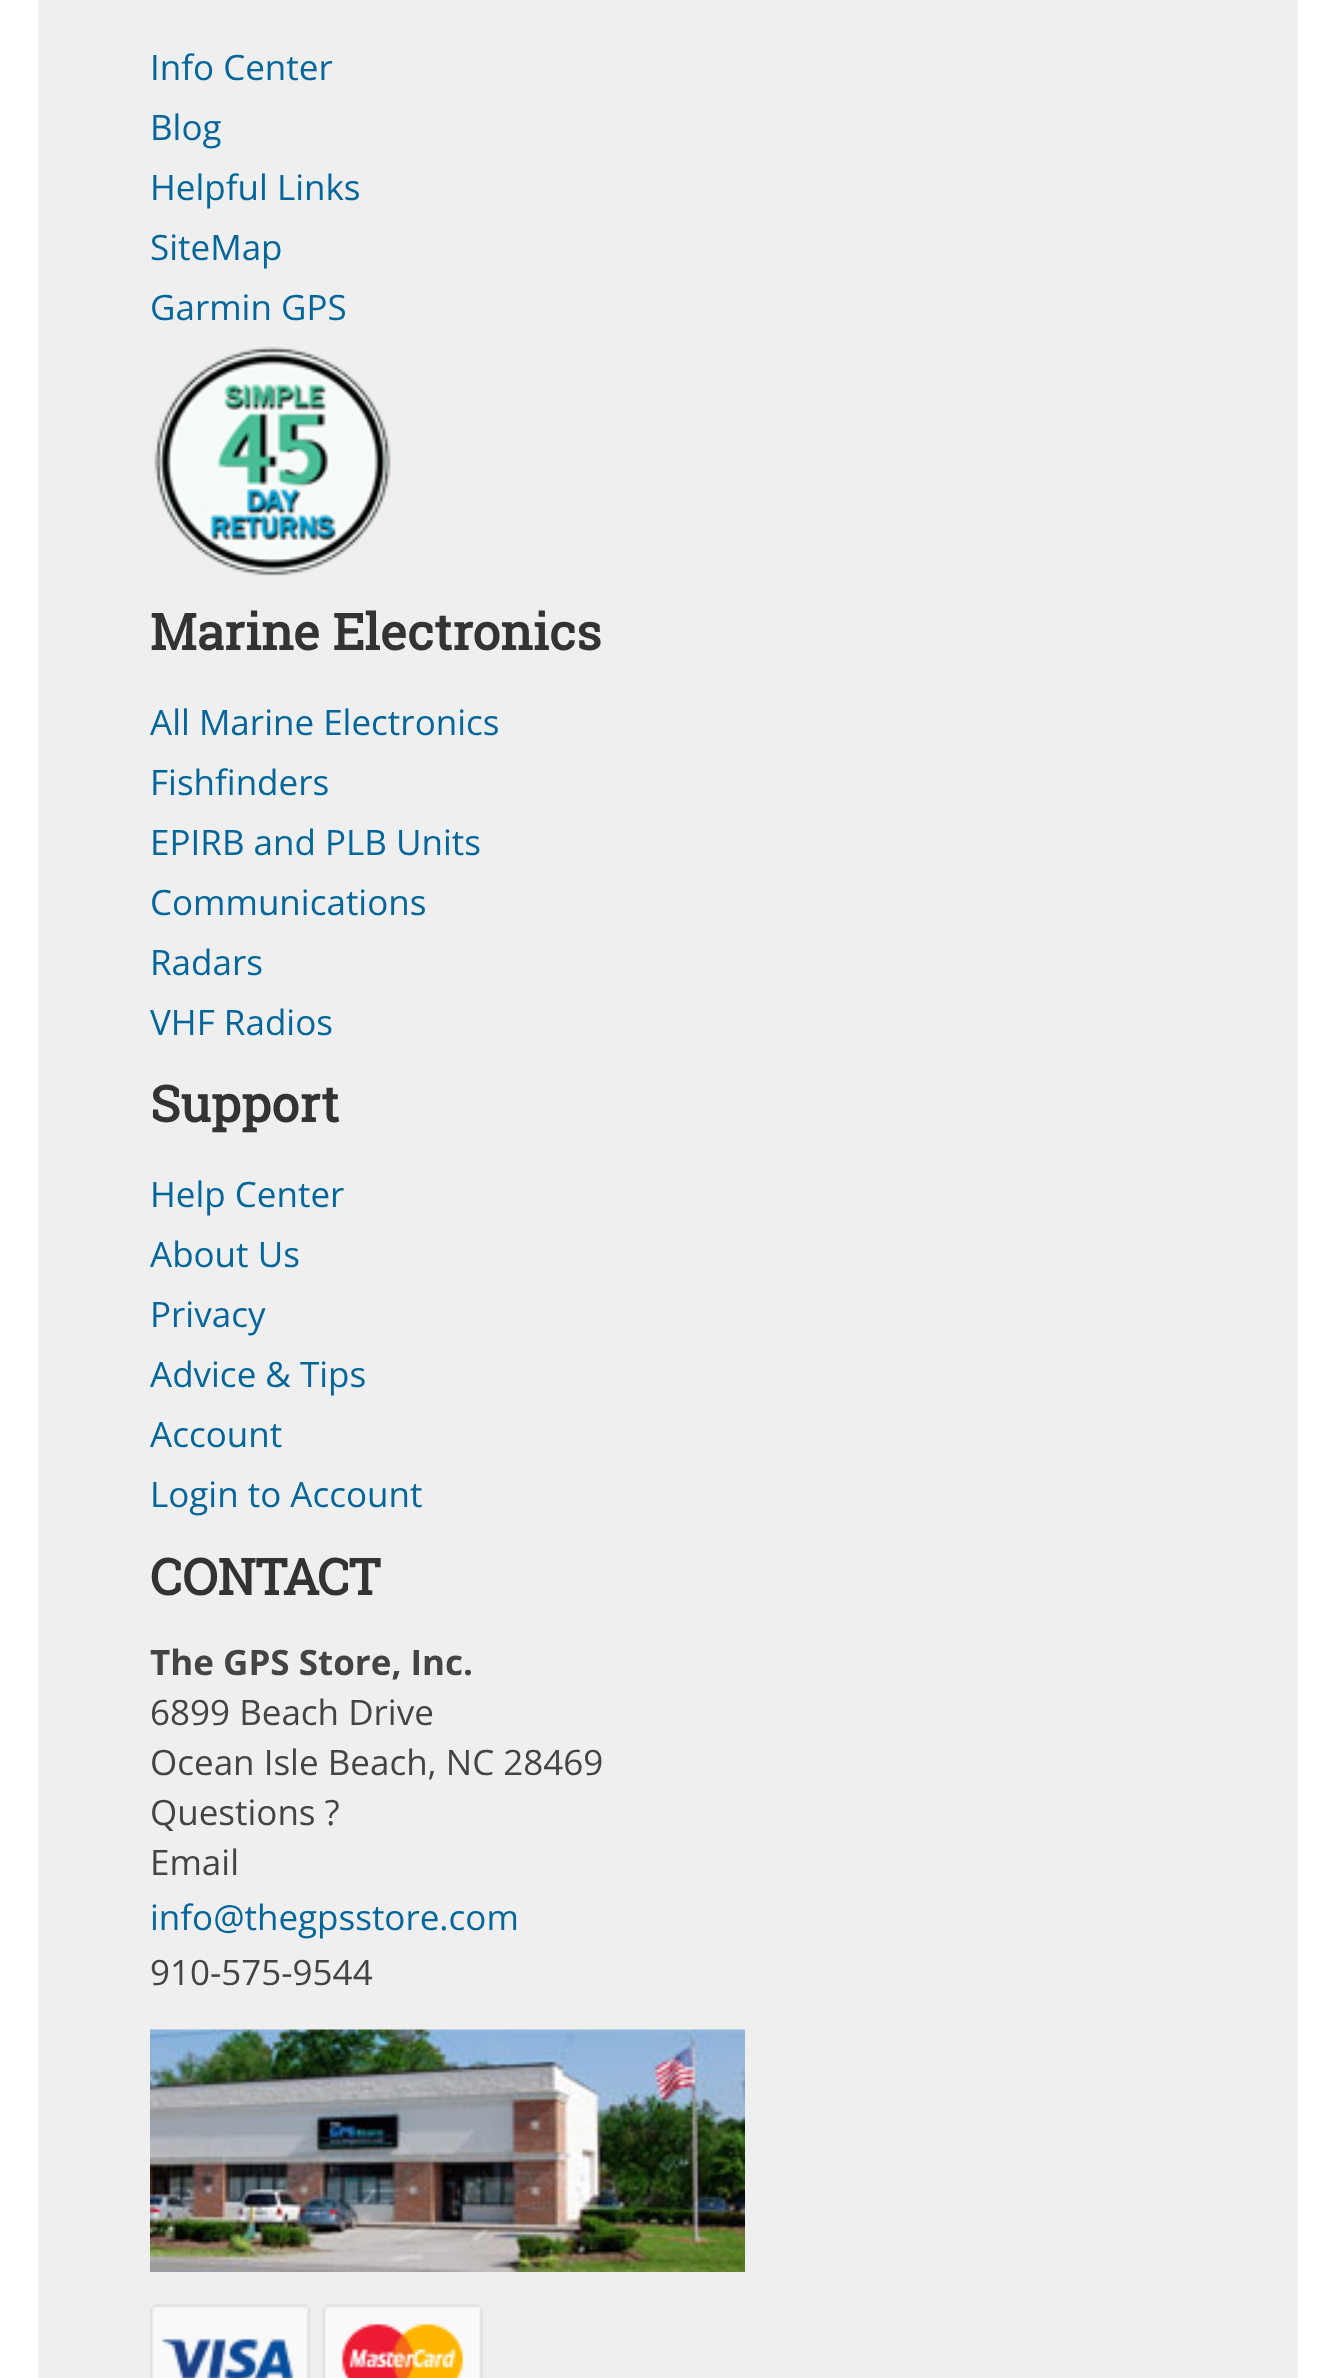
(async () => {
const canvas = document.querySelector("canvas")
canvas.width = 1334
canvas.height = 2378
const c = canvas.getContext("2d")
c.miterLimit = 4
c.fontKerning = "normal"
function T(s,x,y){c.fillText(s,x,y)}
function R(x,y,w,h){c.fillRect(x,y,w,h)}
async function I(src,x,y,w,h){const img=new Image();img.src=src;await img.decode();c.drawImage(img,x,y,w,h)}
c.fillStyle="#fff"
R(0,0,1334,2378)
c.fillStyle="#efefef"
R(38,0,1260,2378)
c.font="35px Open Sans"
c.fillStyle="#069"
T("Info Center",150,80)
T("Blog",150,140)
T("Helpful Links",150,200)
T("SiteMap",150,260)
T("Garmin GPS",150,320)
await I("1.png",154,346,237,230)
c.font="bold 50px Roboto Slab"
c.fillStyle="#333"
T("Marine Electronics",150,650)
c.font="35px Open Sans"
c.fillStyle="#069"
T("All Marine Electronics",150,735)
T("Fishfinders",150,795)
T("EPIRB and PLB Units",150,855)
T("Communications",150,915)
T("Radars",150,975)
T("VHF Radios",150,1035)
c.font="bold 50px Roboto Slab"
c.fillStyle="#333"
T("Support",150,1122)
c.font="35px Open Sans"
c.fillStyle="#069"
T("Help Center",150,1207)
T("About Us",150,1267)
T("Privacy",150,1327)
T("Advice & Tips",150,1387)
T("Account",150,1447)
T("Login to Account",150,1507)
c.font="bold 50px Roboto Slab"
c.fillStyle="#333"
T("CONTACT",150,1595)
c.font="bold 35px Open Sans"
c.fillStyle="#444"
T("The GPS Store, Inc.",150,1675)
c.font="35px Open Sans"
T("6899 Beach Drive",150,1725)
T("Ocean Isle Beach, NC 28469",150,1775)
T("Questions ?",150,1825)
T("Email",150,1875)
c.fillStyle="#069"
T("info@thegpsstore.com",150,1930)
c.fillStyle="#444"
T("910-575-9544",150,1985)
await I("2.png",150,2029,595,243)
await I("3.png",150,2304,333,74)
})()
